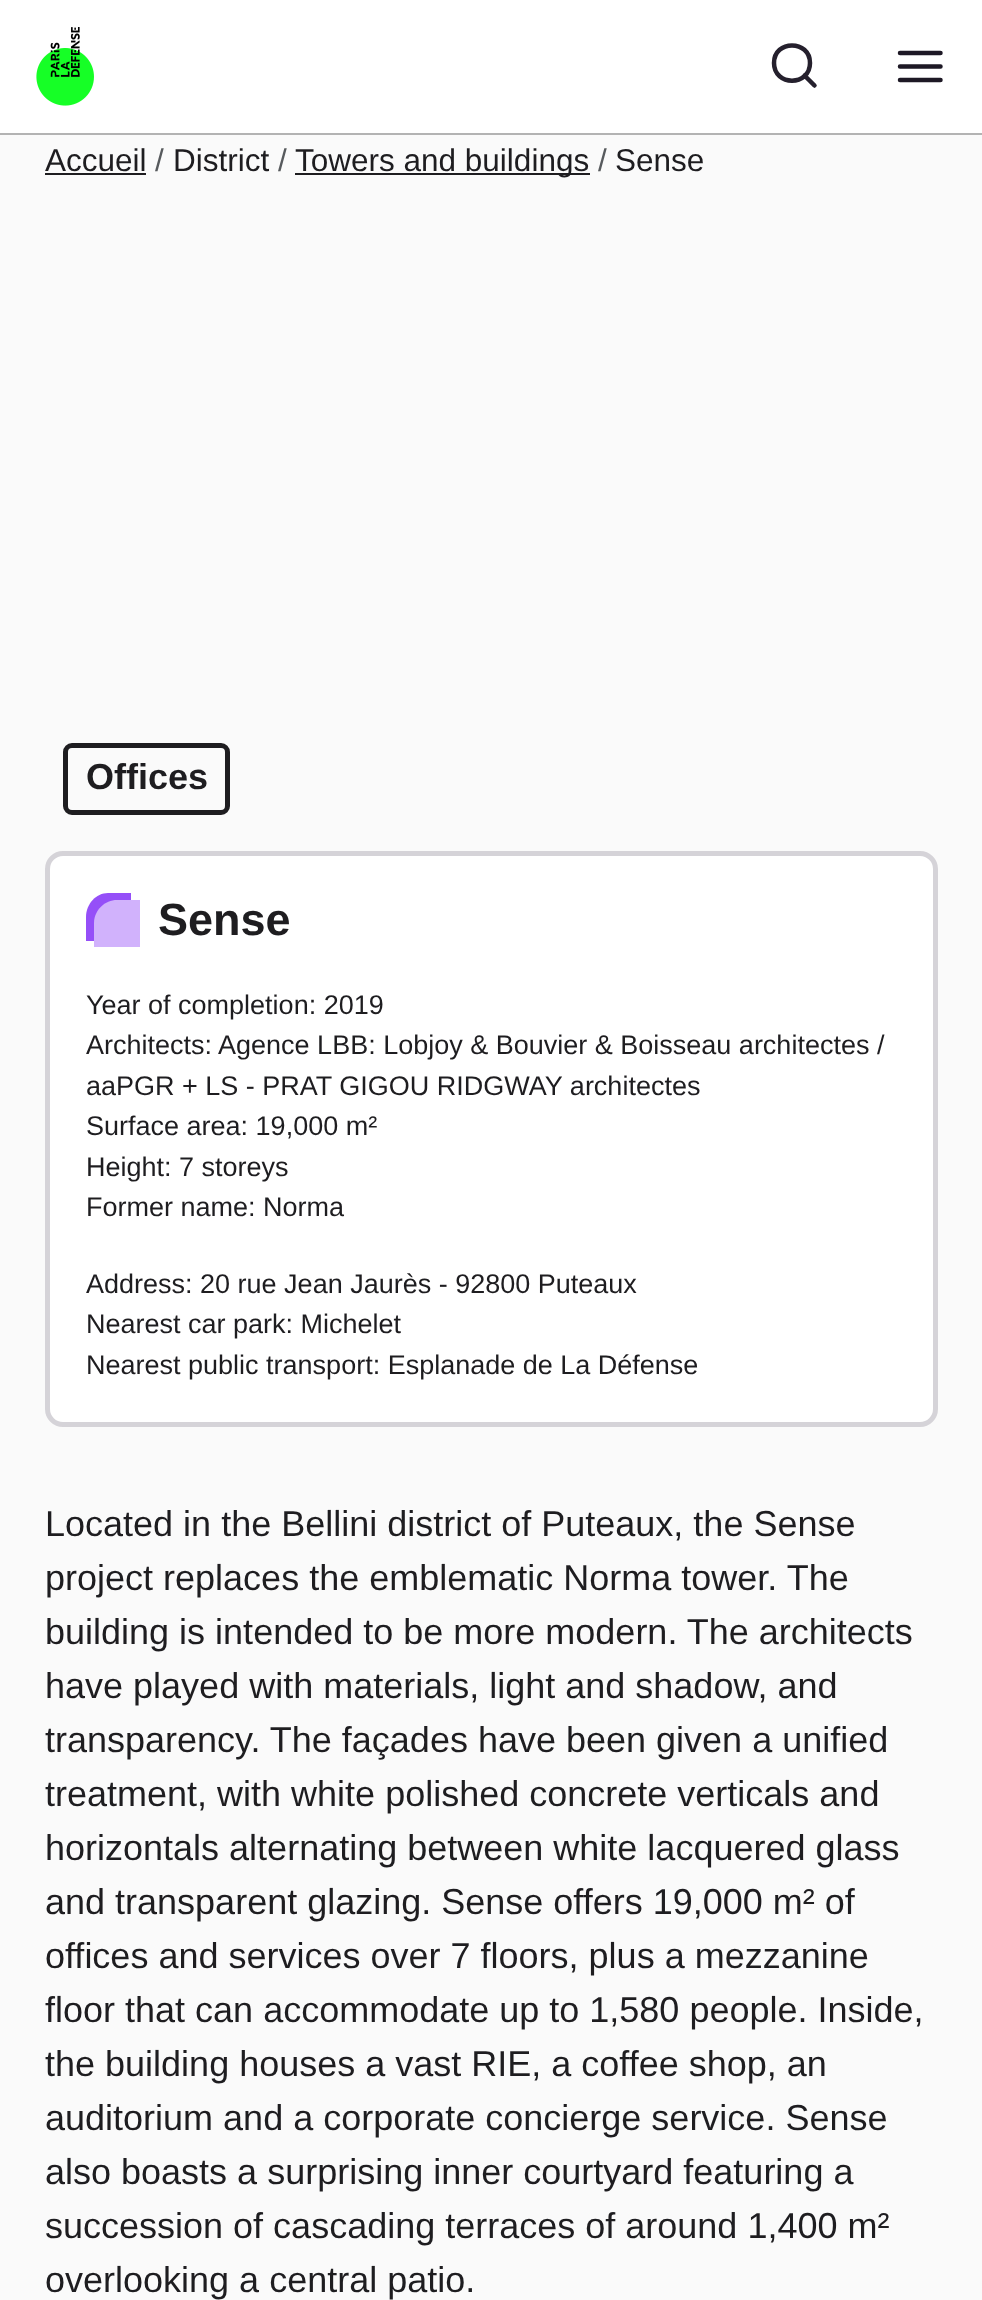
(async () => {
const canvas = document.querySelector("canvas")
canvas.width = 982
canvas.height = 2300
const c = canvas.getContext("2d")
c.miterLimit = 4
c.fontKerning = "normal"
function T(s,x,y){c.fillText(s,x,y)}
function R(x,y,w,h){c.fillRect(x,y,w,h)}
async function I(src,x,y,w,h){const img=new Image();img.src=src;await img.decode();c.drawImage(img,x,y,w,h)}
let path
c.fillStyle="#fafafa"
R(0,0,982,2300)
c.fillStyle="#fff"
R(0,0,982,133)
c.fillStyle="#b3b3b3"
R(0,133,982,2)
await I("1.png",36,27,58,79)
path = new Path2D("M814.5 85.5l-10-10m5.5-12.5c0 23.5-36 23.5-36 0c0-23.5 36-23.5 36 0z")
c.strokeStyle="#25202d"
c.lineWidth=4.5
c.lineCap="round"
c.lineJoin="round"
c.stroke(path)
path = new Path2D("M900 66.5h40.5m-40.5-13.5h40.5m-40.5 27h40.5")
c.strokeStyle="#1d1825"
c.stroke(path)
c.font="31.5px Liberation Sans"
c.fillStyle="#1e1d20"
T("Accueil",45,171)
R(45,173,101,2)
c.fillStyle="#575a5d"
T("/",155,171)
c.fillStyle="#1e1d20"
T("District",173,171)
c.fillStyle="#575a5d"
T("/",278,171)
c.fillStyle="#1e1d20"
R(295,173,295,2)
T("Towers and buildings",295,171)
c.fillStyle="#575a5d"
T("/",598,171)
c.fillStyle="#1e1d20"
T("Sense",615,171)
c.beginPath()
c.roundRect(65.5,745.5,162,67,6.5)
c.strokeStyle="#1e1d20"
c.lineWidth=5
c.lineJoin="miter"
c.stroke()
c.font="bold 36px Liberation Sans"
T("Offices",86,789)
c.fillStyle="#fff"
c.beginPath()
c.roundRect(47.5,853.5,888,571,15.5)
c.fill()
c.strokeStyle="#d5d3d8"
c.stroke()
c.fillStyle="#954ff8"
path = new Path2D("M131 893v48h-45v-24c0-13 10-24 22-24z")
c.fill(path)
c.fillStyle="#d1b2fc"
path = new Path2D("M140 900v47h-46v-24c0-13 11-23 23-23z")
c.fill(path)
c.font="bold 45px Liberation Sans"
c.fillStyle="#1e1d20"
T("Sense",158,935)
c.font="27px Liberation Sans"
T("Year of completion: 2019",86,1014)
T("Architects: Agence LBB: Lobjoy & Bouvier & Boisseau architectes /",86,1054)
T("aaPGR + LS - PRAT GIGOU RIDGWAY architectes",86,1095)
T("Surface area: 19,000 m²",86,1135)
T("Height: 7 storeys",86,1176)
T("Former name: Norma",86,1216)
T("Address: 20 rue Jean Jaurès - 92800 Puteaux",86,1293)
T("Nearest car park: Michelet",86,1333)
T("Nearest public transport: Esplanade de La Défense",86,1374)
c.font="36px Liberation Sans"
T("Located in the Bellini district of Puteaux, the Sense",45,1536)
T("project replaces the emblematic Norma tower. The",45,1590)
T("building is intended to be more modern. The architects",45,1644)
T("have played with materials, light and shadow, and",45,1698)
T("transparency. The façades have been given a unified",45,1752)
T("treatment, with white polished concrete verticals and",45,1806)
T("horizontals alternating between white lacquered glass",45,1860)
T("and transparent glazing. Sense offers 19,000 m² of",45,1914)
T("offices and services over 7 floors, plus a mezzanine",45,1968)
T("floor that can accommodate up to 1,580 people. Inside,",45,2022)
T("the building houses a vast RIE, a coffee shop, an",45,2076)
T("auditorium and a corporate concierge service. Sense",45,2130)
T("also boasts a surprising inner courtyard featuring a",45,2184)
T("succession of cascading terraces of around 1,400 m²",45,2238)
T("overlooking a central patio.",45,2292)
})()
